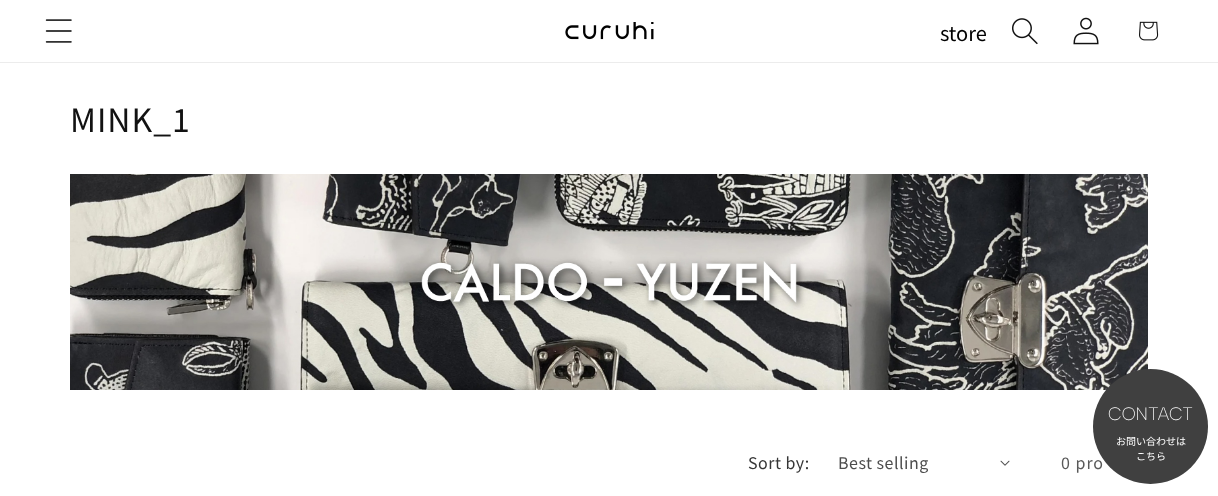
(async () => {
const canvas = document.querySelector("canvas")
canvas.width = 1218
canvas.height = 496
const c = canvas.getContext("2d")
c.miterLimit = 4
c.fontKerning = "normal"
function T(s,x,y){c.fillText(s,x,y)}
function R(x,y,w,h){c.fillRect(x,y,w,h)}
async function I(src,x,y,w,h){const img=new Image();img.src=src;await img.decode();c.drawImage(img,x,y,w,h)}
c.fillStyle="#fff"
R(0,0,1218,496)
c.fillStyle="#ececec"
R(0,62,1218,1)
await I("1.png",45,19,27,24)
await I("2.png",565,22,89,18)
c.font="20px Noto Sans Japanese"
c.fillStyle="#010101"
T("store",940,41)
await I("3.png",1012,18,26,27)
await I("4.png",1073,17,26,28)
await I("5.png",1139,21,20,20)
await I("6.png",70,174,1078,216)
c.letterSpacing="1px"
c.font="16px Noto Sans Japanese"
c.fillStyle="#595959"
T("0 pro",1061,469)
c.fillStyle="#404040"
c.beginPath()
c.arc(1150.5,426.5,57.5,0,7)
c.fill()
c.letterSpacing="0px"
c.font="200 18px Albert Sans"
c.fillStyle="#fff"
T("CONTACT",1108,420)
c.font="10px Noto Sans Japanese"
T("お問い合わせは",1116,445)
T("こちら",1136,460)
c.letterSpacing="1px"
c.font="32px Noto Sans Japanese"
c.fillStyle="#121212"
T("MINK_1",70,132)
c.letterSpacing="0.5px"
c.font="16px Noto Sans Japanese"
c.fillStyle="#363636"
T("Sort by:",748,469)
c.fillStyle="#4d4d4d"
T("Best selling",838,469)
await I("7.png",1000,460,10,6)
})()
